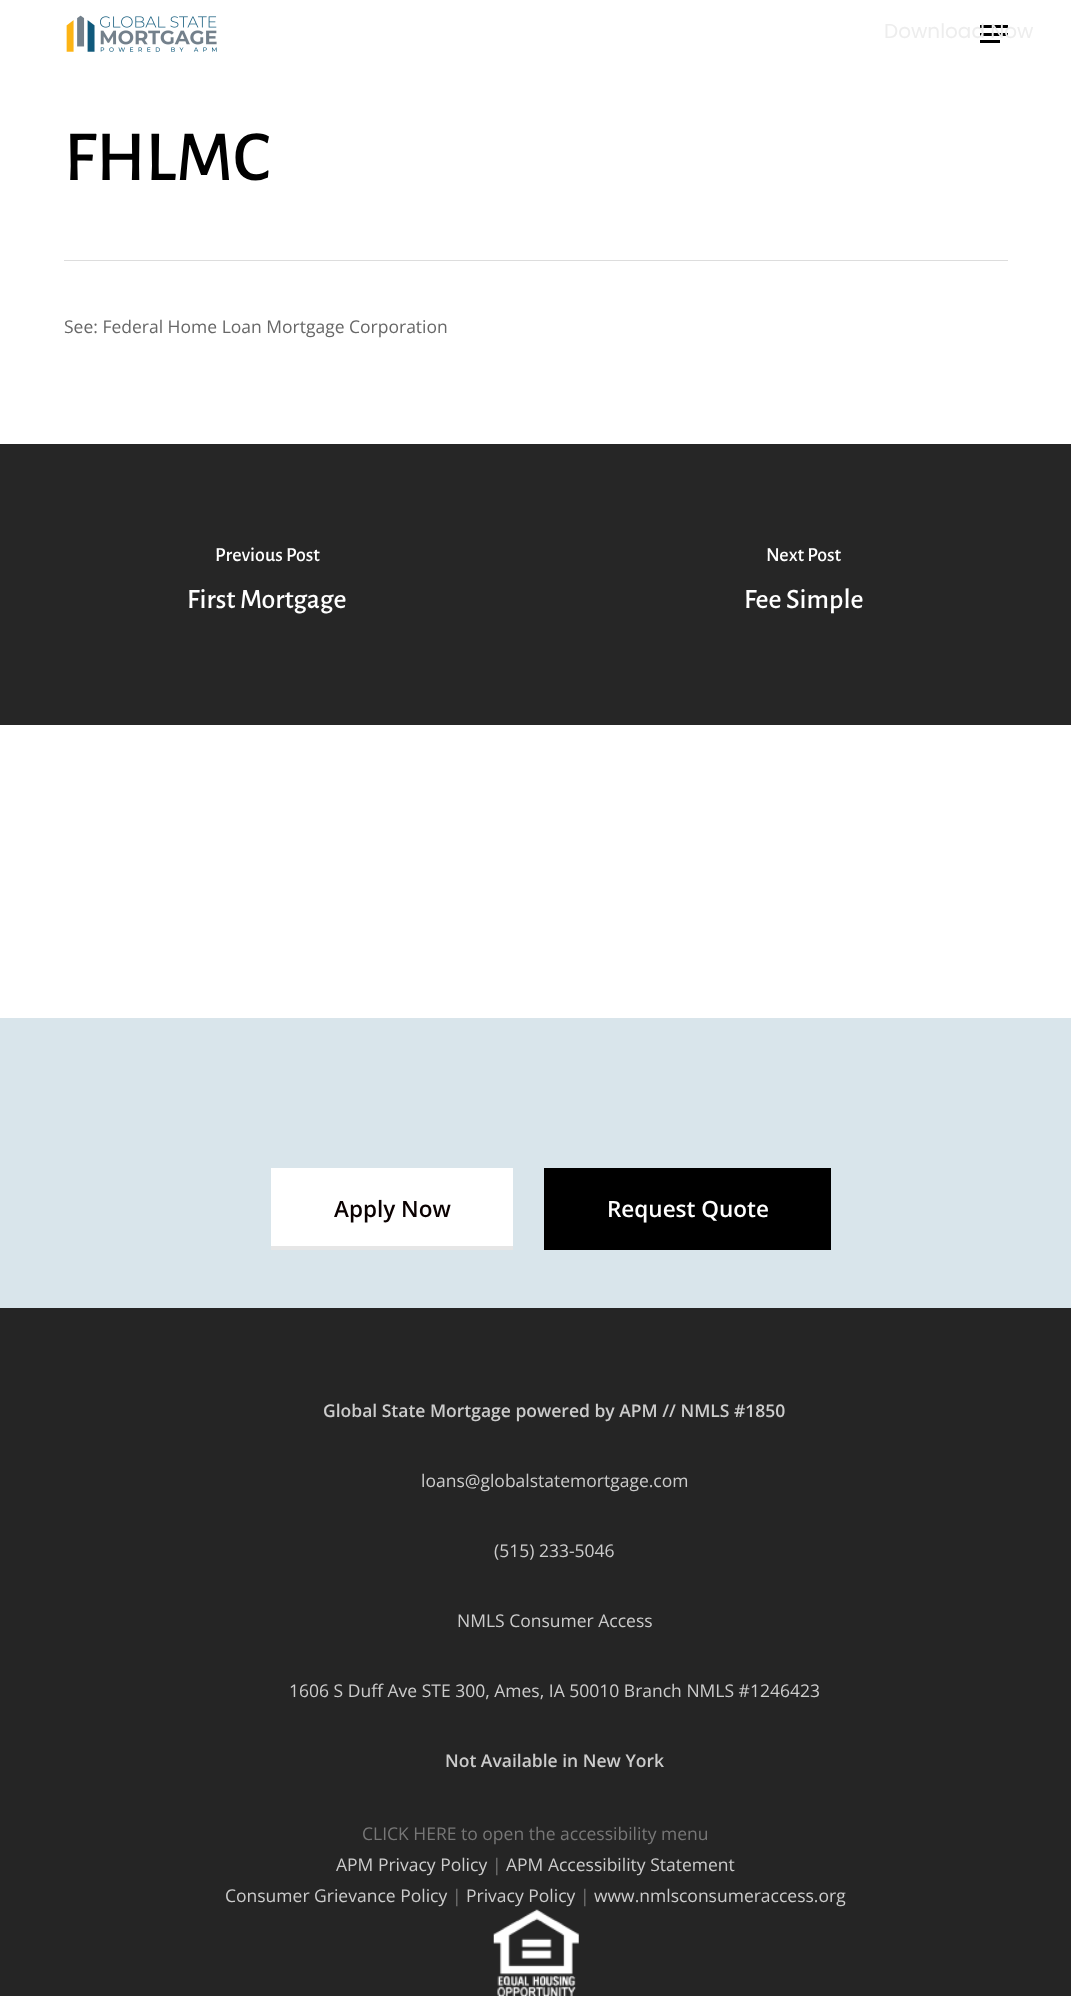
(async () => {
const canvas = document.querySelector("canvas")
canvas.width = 1071
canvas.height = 1996
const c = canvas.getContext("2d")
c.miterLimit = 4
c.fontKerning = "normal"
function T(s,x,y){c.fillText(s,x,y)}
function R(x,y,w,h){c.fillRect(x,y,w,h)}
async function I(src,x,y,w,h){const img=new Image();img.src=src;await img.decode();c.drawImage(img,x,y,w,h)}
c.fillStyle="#fff"
R(0,0,1071,1996)
c.fillStyle="#000"
R(980,25,28,3)
R(980,33,28,3)
c.font="20px Poppins"
c.fillStyle="#ededed"
T("Download Now",884,38)
await I("1.png",66,15,151,37)
c.fillStyle="#000"
R(980,40,20,3)
c.fillStyle="#ddd"
R(64,260,944,1)
c.font="500 72px Alegreya Sans"
c.fillStyle="#000"
T("FHLMC",64,180)
c.font="17.5px Open Sans"
c.fillStyle="#676767"
T("See: Federal Home Loan Mortgage Corporation",64,333)
c.fillStyle="#262626"
R(0,444,1071,281)
c.font="500 20px Alegreya Sans"
c.fillStyle="#fff"
T("Previous Post",215,561)
c.font="500 28px Alegreya Sans"
T("First Mortgage",187,608)
c.font="500 20px Alegreya Sans"
T("Next Post",766,561)
c.font="500 28px Alegreya Sans"
T("Fee Simple",744,608)
c.fillStyle="#d9e5eb"
R(0,1018,1071,290)
c.fillStyle="#fff"
R(271,1168,242,78)
c.fillStyle="#e6e6e6"
R(271,1246,242,4)
c.font="600 22.5px Open Sans"
c.fillStyle="#0a0101"
T("Apply Now",334,1217)
c.fillStyle="#000"
R(544,1168,287,82)
c.fillStyle="#fff"
T("Request Quote",607,1217)
c.fillStyle="#252525"
R(0,1308,1071,688)
c.font="600 17.5px Open Sans"
c.fillStyle="#ccc"
T("Global State Mortgage powered by APM // NMLS #1850",323,1417)
c.font="17.5px Open Sans"
T("loans@globalstatemortgage.com",421,1487)
T("(515) 233-5046",494,1557)
T("NMLS Consumer Access",457,1627)
T("1606 S Duff Ave STE 300, Ames, IA 50010 Branch NMLS #1246423",289,1697)
c.font="600 17.5px Open Sans"
T("Not Available in New York",445,1767)
c.font="17.5px Open Sans"
c.fillStyle="#777"
T("CLICK HERE to open the accessibility menu",362,1840)
c.fillStyle="#ccc"
T("APM Privacy Policy",336,1871)
c.fillStyle="#777"
T("|",492,1871)
c.fillStyle="#ccc"
T("APM Accessibility Statement",506,1871)
T("Consumer Grievance Policy",225,1902)
c.fillStyle="#777"
T("|",452,1902)
c.fillStyle="#ccc"
T("Privacy Policy",466,1902)
c.fillStyle="#777"
T("|",580,1902)
c.fillStyle="#ccc"
T("www.nmlsconsumeraccess.org",594,1902)
await I("2.png",493,1909,86,87)
})()
